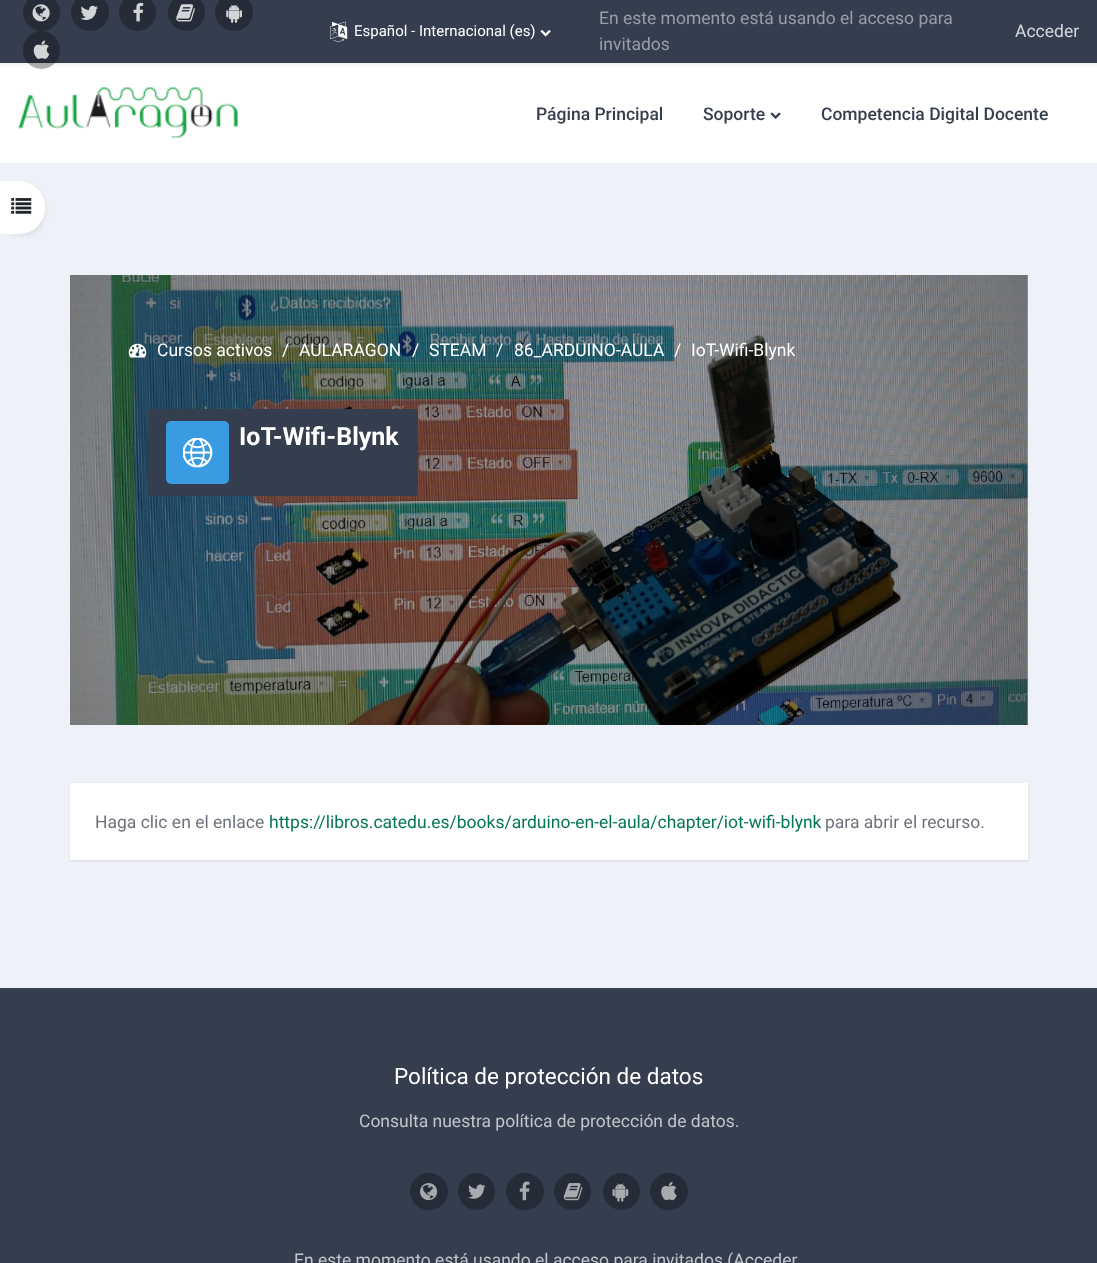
(async () => {
const canvas = document.querySelector("canvas")
canvas.width = 1097
canvas.height = 1263
const c = canvas.getContext("2d")
c.miterLimit = 4
c.fontKerning = "normal"
function T(s,x,y){c.fillText(s,x,y)}
function R(x,y,w,h){c.fillRect(x,y,w,h)}
function Q(x,y,w,h,r){c.beginPath();c.roundRect(x,y,w,h,r);c.fill()}
async function I(src,x,y,w,h){const img=new Image();img.src=src;await img.decode();c.drawImage(img,x,y,w,h)}
c.fillStyle="#eef2f8"
R(0,0,1097,1263)
c.fillStyle="#a7a9ae"
R(1027,275,1,450)
c.fillStyle="#fff"
R(0,63,1097,100)
c.fillStyle="#0000001a"
c.filter="blur(2.5px)"
c.beginPath()
c.rect(0,1,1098,63)
c.fill()
c.filter="none"
c.fillStyle="#353e4e"
R(0,0,1097,63)
c.fillStyle="#252b37"
c.beginPath()
c.arc(41.5,12.5,18.5,0,7)
c.fill()
await I("1.png",32,4,18,18)
Q(71,-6,38,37,18.5)
await I("2.png",80,5,18,15)
c.beginPath()
c.arc(137.5,12.5,18.5,0,7)
c.fill()
await I("3.png",133,2,11,20)
c.beginPath()
c.arc(186.5,12.5,18.5,0,7)
c.fill()
await I("4.png",176,4,19,18)
Q(215,-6,38,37,18.5)
await I("5.png",226,4,16,19)
c.fillStyle="#0000004d"
Q(23,31,37,38,18.5)
await I("6.png",33,40,17,19)
await I("7.png",330,21,18,21)
c.font="15px Roboto"
c.fillStyle="#fff"
T("Español - Internacional (es)",354,36)
await I("8.png",540,30,11,7)
c.font="17.5px Roboto"
c.fillStyle="#9a9fa7"
T("En este momento está usando el acceso para",599,24)
c.fillStyle="#d7d8dc"
T("Acceder",1015,37)
c.fillStyle="#9a9fa7"
T("invitados",599,50)
await I("9.png",18,87,220,51)
c.font="500 17.5px Roboto"
c.fillStyle="#353e4e"
T("Página Principal",536,120)
T("Soporte",703,120)
await I("10.png",770,112,11,7)
T("Competencia Digital Docente",821,120)
c.fillStyle="#00000012"
c.filter="blur(2.5px)"
c.beginPath()
c.roundRect(0,184,45,52,26)
c.fill()
c.filter="none"
c.fillStyle="#fff"
c.beginPath()
c.roundRect(0,181,45,53,[0,26,26,0])
c.fill()
await I("11.png",11,198,21,16)
await I("12.png",70,275,958,450)
await I("13.png",128,343,19,15)
c.font="17.5px Roboto"
T("Cursos activos",157,356)
T("/",282,356)
T("AULARAGON",299,356)
T("/",412,356)
T("STEAM",429,356)
T("/",496,356)
T("86_ARDUINO-AULA",514,356)
T("/",674,356)
T("IoT-Wifi-Blynk",691,356)
c.fillStyle="#353e4e"
Q(148,409,270,87,2.5)
c.fillStyle="#399be2"
Q(166,421,63,63,5)
await I("14.png",183,438,30,30)
c.font="bold 25px Roboto"
c.fillStyle="#fff"
T("IoT-Wifi-Blynk",239,445)
c.fillStyle="#0000001a"
c.filter="blur(1px)"
c.beginPath()
c.rect(70,784,958,77)
c.fill()
c.filter="none"
c.fillStyle="#fff"
R(70,783,958,77)
c.font="17.5px Roboto"
c.fillStyle="#6d727c"
T("Haga clic en el enlace",95,828)
c.fillStyle="#057657"
T("https://libros.catedu.es/books/arduino-en-el-aula/chapter/iot-wifi-blynk",269,828)
c.fillStyle="#6d727c"
T("para abrir el recurso.",825,828)
c.fillStyle="#353e4e"
R(0,988,1097,275)
c.font="22.5px Roboto"
c.fillStyle="#fff"
T("Política de protección de datos",394,1084)
c.font="17.5px Roboto"
c.fillStyle="#c2c5ca"
T("Consulta nuestra política de protección de datos.",359,1127)
c.fillStyle="#252b37"
Q(410,1173,38,37,18.5)
await I("15.png",420,1183,18,18)
c.beginPath()
c.arc(476.5,1191.5,18.5,0,7)
c.fill()
await I("16.png",468,1184,18,15)
Q(506,1173,38,37,18.5)
await I("17.png",519,1181,11,20)
c.beginPath()
c.arc(572.5,1191.5,18.5,0,7)
c.fill()
await I("18.png",563,1183,20,18)
c.beginPath()
c.arc(621.5,1191.5,18.5,0,7)
c.fill()
await I("19.png",612,1183,17,19)
Q(650,1173,38,37,18.5)
await I("20.png",661,1181,16,20)
c.fillStyle="#c2c5ca"
T("En este momento está usando el acceso para invitados (Acceder",294,1266)
})()
